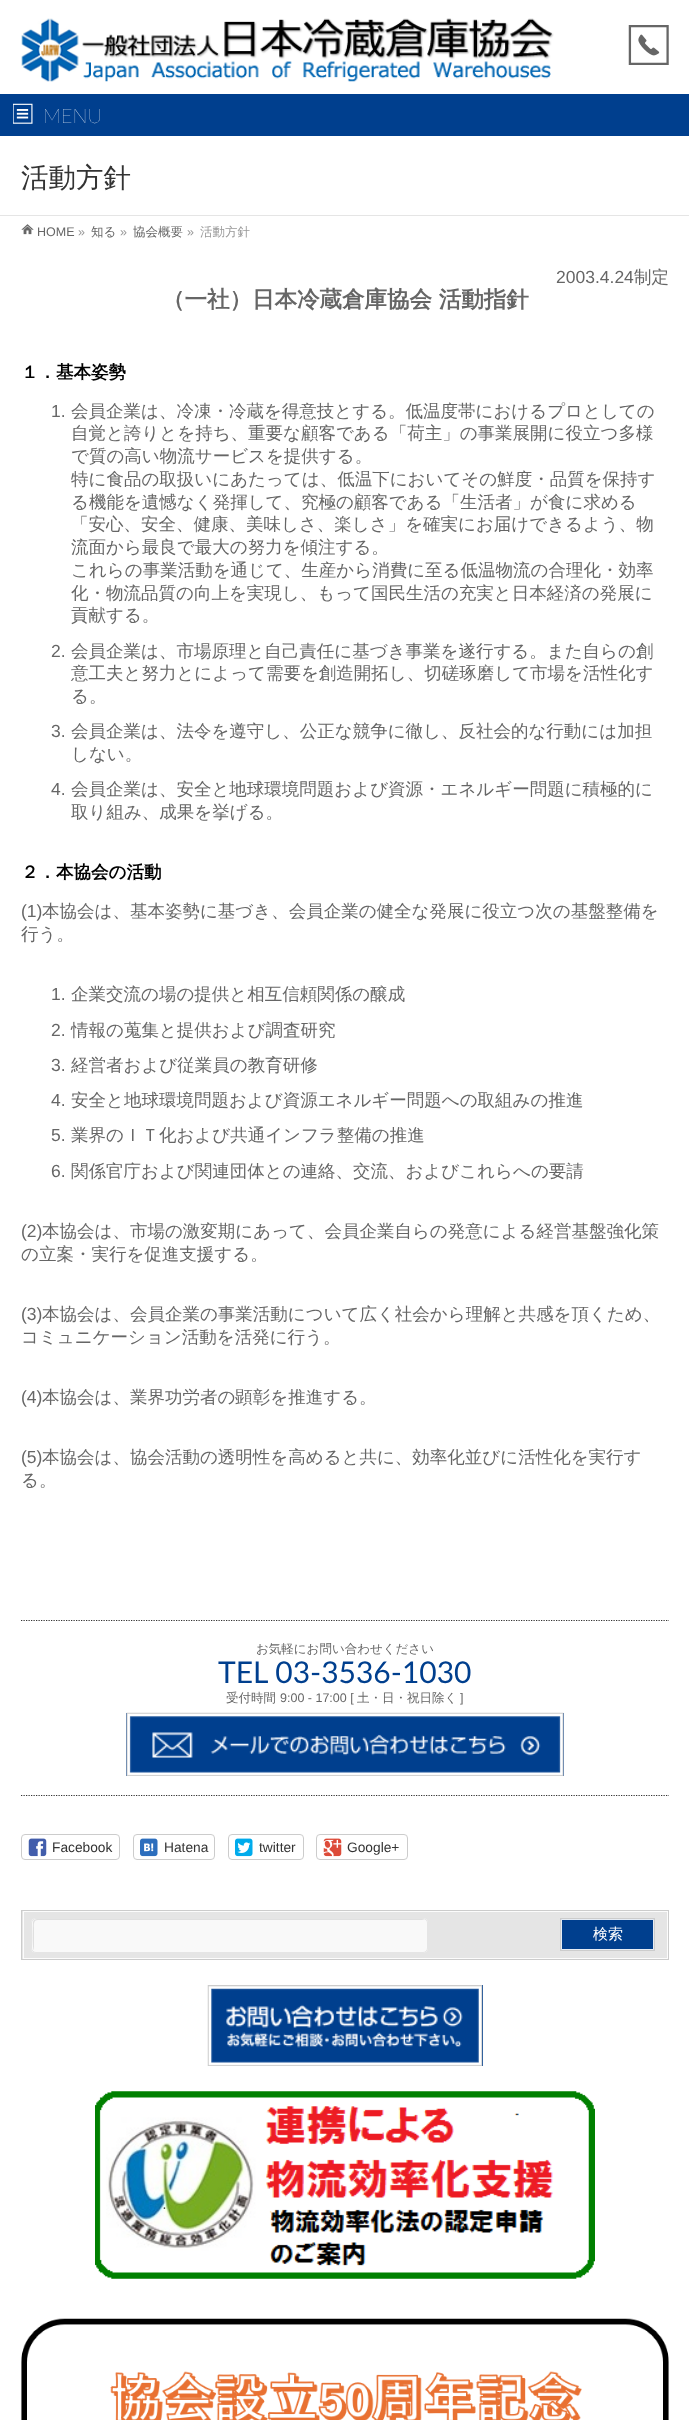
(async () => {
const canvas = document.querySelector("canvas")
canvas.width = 689
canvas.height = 2420
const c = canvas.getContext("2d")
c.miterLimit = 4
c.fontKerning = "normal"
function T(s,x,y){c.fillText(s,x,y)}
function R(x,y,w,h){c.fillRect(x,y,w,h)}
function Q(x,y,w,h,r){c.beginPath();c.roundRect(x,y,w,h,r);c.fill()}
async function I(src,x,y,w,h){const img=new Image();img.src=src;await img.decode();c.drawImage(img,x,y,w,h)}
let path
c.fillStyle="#fff"
R(0,0,689,2420)
await I("1.png",21,18,533,64)
await I("2.png",628,25,41,40)
c.fillStyle="#003f8e"
R(0,94,689,42)
await I("3.png",13,103,20,21)
c.font="200 20px Lato"
c.fillStyle="#fff"
T("MENU",43,123)
c.fillStyle="#e5e5e5"
R(0,215,689,1)
c.font="500 27.5px WenQuanYi Zen Hei"
c.fillStyle="#333"
T("活動方針",21,187)
await I("4.png",21,224,13,11)
c.font="12.5px Liberation Sans"
c.fillStyle="#666"
T("HOME",37,236)
c.fillStyle="#999"
T("»",78,236)
c.font="500 12.5px WenQuanYi Zen Hei"
c.fillStyle="#666"
T("知る",91,236)
c.font="12.5px Liberation Sans"
c.fillStyle="#999"
T("»",120,236)
c.font="500 12.5px WenQuanYi Zen Hei"
c.fillStyle="#666"
T("協会概要",133,236)
c.font="12.5px Liberation Sans"
c.fillStyle="#999"
T("»",187,236)
c.font="500 12.5px WenQuanYi Zen Hei"
T("活動方針",200,236)
c.font="17.5px Liberation Sans"
c.fillStyle="#666"
T("2003.4.24",556,283)
c.font="500 17.5px WenQuanYi Zen Hei"
T("制定",634,283)
c.font="bold 22.5px WenQuanYi Zen Hei"
T("（一社）日本冷蔵倉庫協会 活動指針",162,307)
c.font="bold 17.5px WenQuanYi Zen Hei"
c.fillStyle="#000"
T("１．基本姿勢",21,378)
c.font="17.5px Liberation Sans"
c.fillStyle="#666"
T("1.",51,417)
c.font="500 17.5px WenQuanYi Zen Hei"
T("会員企業は、冷凍・冷蔵を得意技とする。低温度帯におけるプロとしての",71,417)
T("自覚と誇りとを持ち、重要な顧客である「荷主」の事業展開に役立つ多様",71,439)
T("で質の高い物流サービスを提供する。",71,462)
T("特に食品の取扱いにあたっては、低温下においてその鮮度・品質を保持す",71,485)
T("る機能を遺憾なく発揮して、究極の顧客である「生活者」が食に求める",71,508)
T("「安心、安全、健康、美味しさ、楽しさ」を確実にお届けできるよう、物",71,530)
T("流面から最良で最大の努力を傾注する。",71,553)
T("これらの事業活動を通じて、生産から消費に至る低温物流の合理化・効率",71,576)
T("化・物流品質の向上を実現し、もって国民生活の充実と日本経済の発展に",71,599)
T("貢献する。",71,621)
c.font="17.5px Liberation Sans"
T("2.",51,657)
c.font="500 17.5px WenQuanYi Zen Hei"
T("会員企業は、市場原理と自己責任に基づき事業を遂行する。また自らの創",71,657)
T("意工夫と努力とによって需要を創造開拓し、切磋琢磨して市場を活性化す",71,679)
T("る。",71,702)
c.font="17.5px Liberation Sans"
T("3.",51,737)
c.font="500 17.5px WenQuanYi Zen Hei"
T("会員企業は、法令を遵守し、公正な競争に徹し、反社会的な行動には加担",71,737)
T("しない。",71,760)
c.font="17.5px Liberation Sans"
T("4.",51,795)
c.font="500 17.5px WenQuanYi Zen Hei"
T("会員企業は、安全と地球環境問題および資源・エネルギー問題に積極的に",71,795)
T("取り組み、成果を挙げる。",71,818)
c.font="bold 17.5px WenQuanYi Zen Hei"
c.fillStyle="#000"
T("２．本協会の活動",21,878)
c.font="17.5px Liberation Sans"
c.fillStyle="#666"
T("(1)",21,917)
c.font="500 17.5px WenQuanYi Zen Hei"
T("本協会は、基本姿勢に基づき、会員企業の健全な発展に役立つ次の基盤整備を",42,917)
T("行う。",21,940)
c.font="17.5px Liberation Sans"
T("1.",51,1000)
c.font="500 17.5px WenQuanYi Zen Hei"
T("企業交流の場の提供と相互信頼関係の醸成",71,1000)
c.font="17.5px Liberation Sans"
T("2.",51,1036)
c.font="500 17.5px WenQuanYi Zen Hei"
T("情報の蒐集と提供および調査研究",71,1036)
c.font="17.5px Liberation Sans"
T("3.",51,1071)
c.font="500 17.5px WenQuanYi Zen Hei"
T("経営者および従業員の教育研修",71,1071)
c.font="17.5px Liberation Sans"
T("4.",51,1106)
c.font="500 17.5px WenQuanYi Zen Hei"
T("安全と地球環境問題および資源エネルギー問題への取組みの推進",71,1106)
c.font="17.5px Liberation Sans"
T("5.",51,1141)
c.font="500 17.5px WenQuanYi Zen Hei"
T("業界のＩＴ化および共通インフラ整備の推進",71,1141)
c.font="17.5px Liberation Sans"
T("6.",51,1177)
c.font="500 17.5px WenQuanYi Zen Hei"
T("関係官庁および関連団体との連絡、交流、およびこれらへの要請",71,1177)
c.font="17.5px Liberation Sans"
T("(2)",21,1237)
c.font="500 17.5px WenQuanYi Zen Hei"
T("本協会は、市場の激変期にあって、会員企業自らの発意による経営基盤強化策",42,1237)
T("の立案・実行を促進支援する。",21,1260)
c.font="17.5px Liberation Sans"
T("(3)",21,1320)
c.font="500 17.5px WenQuanYi Zen Hei"
T("本協会は、会員企業の事業活動について広く社会から理解と共感を頂くため、",42,1320)
T("コミュニケーション活動を活発に行う。",21,1343)
c.font="17.5px Liberation Sans"
T("(4)",21,1403)
c.font="500 17.5px WenQuanYi Zen Hei"
T("本協会は、業界功労者の顕彰を推進する。",42,1403)
c.font="17.5px Liberation Sans"
T("(5)",21,1463)
c.font="500 17.5px WenQuanYi Zen Hei"
T("本協会は、協会活動の透明性を高めると共に、効率化並びに活性化を実行す",42,1463)
T("る。",21,1486)
c.save()
c.beginPath()
c.rect(21,1620,648,176)
c.clip()
path = new Path2D("M21 1620.5h648")
c.strokeStyle="#333"
c.lineWidth=1.2
c.setLineDash([1.25,1.25])
c.stroke(path)
path = new Path2D("M21 1795.5h648")
c.stroke(path)
c.restore()
c.font="500 12.5px WenQuanYi Zen Hei"
T("お気軽にお問い合わせください",256,1653)
c.font="30px Lato"
c.fillStyle="#003f8e"
T("TEL 03-3536-1030",218,1683)
c.font="500 12.5px WenQuanYi Zen Hei"
c.fillStyle="#666"
T("受付時間",226,1702)
c.font="12.5px Liberation Sans"
T("9:00 - 17:00 [",280,1702)
c.font="500 12.5px WenQuanYi Zen Hei"
T("土・日・祝日除く",357,1702)
c.font="12.5px Liberation Sans"
T("]",460,1702)
c.fillStyle="#003f8e"
R(126,1713,438,63)
await I("5.png",126,1712,438,64)
c.beginPath()
c.roundRect(21.5,1834.5,98,25,3.5)
c.strokeStyle="#ccc"
c.stroke()
await I("6.png",28,1838,19,19)
c.font="13.75px Liberation Sans"
c.fillStyle="#333"
T("Facebook",52,1852)
c.beginPath()
c.roundRect(133.5,1834.5,81,25,3.5)
c.stroke()
await I("7.png",140,1838,18,19)
T("Hatena",164,1852)
c.beginPath()
c.roundRect(228.5,1834.5,75,25,3.5)
c.stroke()
await I("8.png",235,1838,18,19)
T("twitter",259,1852)
c.beginPath()
c.roundRect(316.5,1834.5,91,25,3.5)
c.stroke()
await I("9.png",323,1838,19,19)
T("Google+",347,1852)
c.fillStyle="#e5e5e5"
R(22,1911,645,48)
c.strokeStyle="#fcfcfc"
c.strokeRect(23.5,1911.5,644,47)
c.strokeStyle="#ccc"
c.strokeRect(21.5,1910.5,647,49)
c.fillStyle="#f9f9f9"
Q(31,1918,397,35,5)
c.fillStyle="#e0e0e0"
path = new Path2D("M38 1920h387l-3-1h-385l-3 1l-1 2c0 3-1 26 1 28v-22c0-3-1-8 4-8z")
c.fill(path)
c.beginPath()
c.roundRect(31.5,1918.5,396,34,4.5)
c.strokeStyle="#e5e5e5"
c.stroke()
c.fillStyle="#003f8e"
c.beginPath()
c.rect(561.5,1919.5,92,30)
c.fill()
c.strokeStyle="#e6ecf4"
c.stroke()
c.strokeStyle="#ccc"
c.strokeRect(560.5,1918.5,94,32)
c.font="500 15px WenQuanYi Zen Hei"
c.fillStyle="#fff"
T("検索",593,1939)
c.fillStyle="#003f8e"
R(211,1985,272,81)
await I("10.png",207,1985,276,81)
await I("11.png",95,2091,500,188)
await I("12.png",21,2318,648,102)
})()
